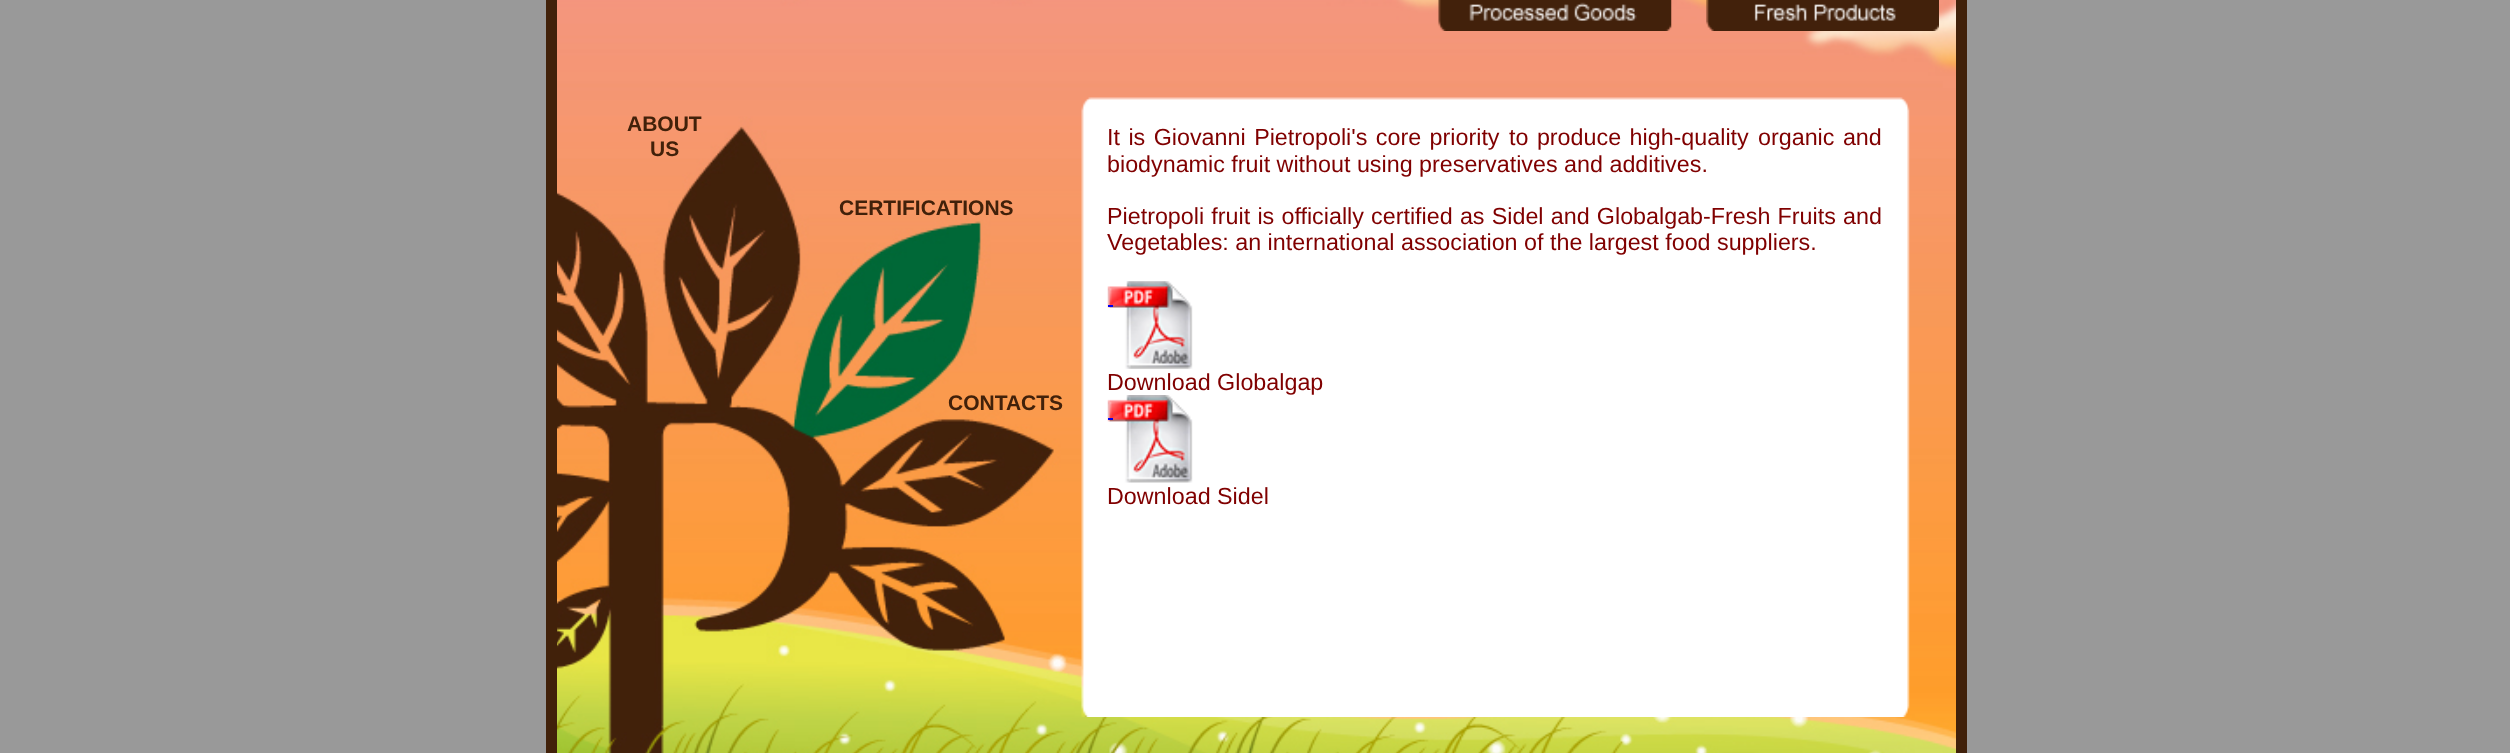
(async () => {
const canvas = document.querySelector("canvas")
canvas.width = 2510
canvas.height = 753
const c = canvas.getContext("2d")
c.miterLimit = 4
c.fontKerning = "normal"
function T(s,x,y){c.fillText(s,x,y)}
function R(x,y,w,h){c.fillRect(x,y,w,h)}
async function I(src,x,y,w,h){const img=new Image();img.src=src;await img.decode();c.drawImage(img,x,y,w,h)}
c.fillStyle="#999"
R(0,0,2510,753)
await I("1.png",557,0,1399,753)
c.strokeStyle="#41210a"
c.lineWidth=11
c.strokeRect(551.5,-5.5,1410,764)
await I("2.png",1438,0,234,31)
await I("3.png",1706,0,233,31)
c.font="bold 21px Liberation Sans"
c.fillStyle="#41210a"
T("ABOUT",627,131)
T("US",650,156)
T("CERTIFICATIONS",839,215)
T("CONTACTS",948,410)
await I("4.png",1081,97,829,620)
c.wordSpacing="2px"
c.font="23.3px Liberation Sans"
c.fillStyle="#800000"
T("It is Giovanni Pietropoli's core priority",1107,145)
T("to produce high-quality",1509,145)
T("organic and",1758,145)
c.wordSpacing="0px"
T("biodynamic fruit without using preservatives and additives.",1107,172)
c.wordSpacing="0.75px"
T("Pietropoli fruit is officially certified as Sidel and Globalgab-Fresh Fruits and",1107,224)
c.wordSpacing="0px"
T("Vegetables: an international association of the largest food suppliers.",1107,250)
await I("5.png",1107,281,86,88)
c.fillStyle="#00e"
R(1108,305,5,2)
c.fillStyle="#800000"
T("Download Globalgap",1107,390)
await I("6.png",1107,395,86,88)
c.fillStyle="#00e"
R(1108,418,5,2)
c.fillStyle="#800000"
T("Download Sidel",1107,504)
})()
